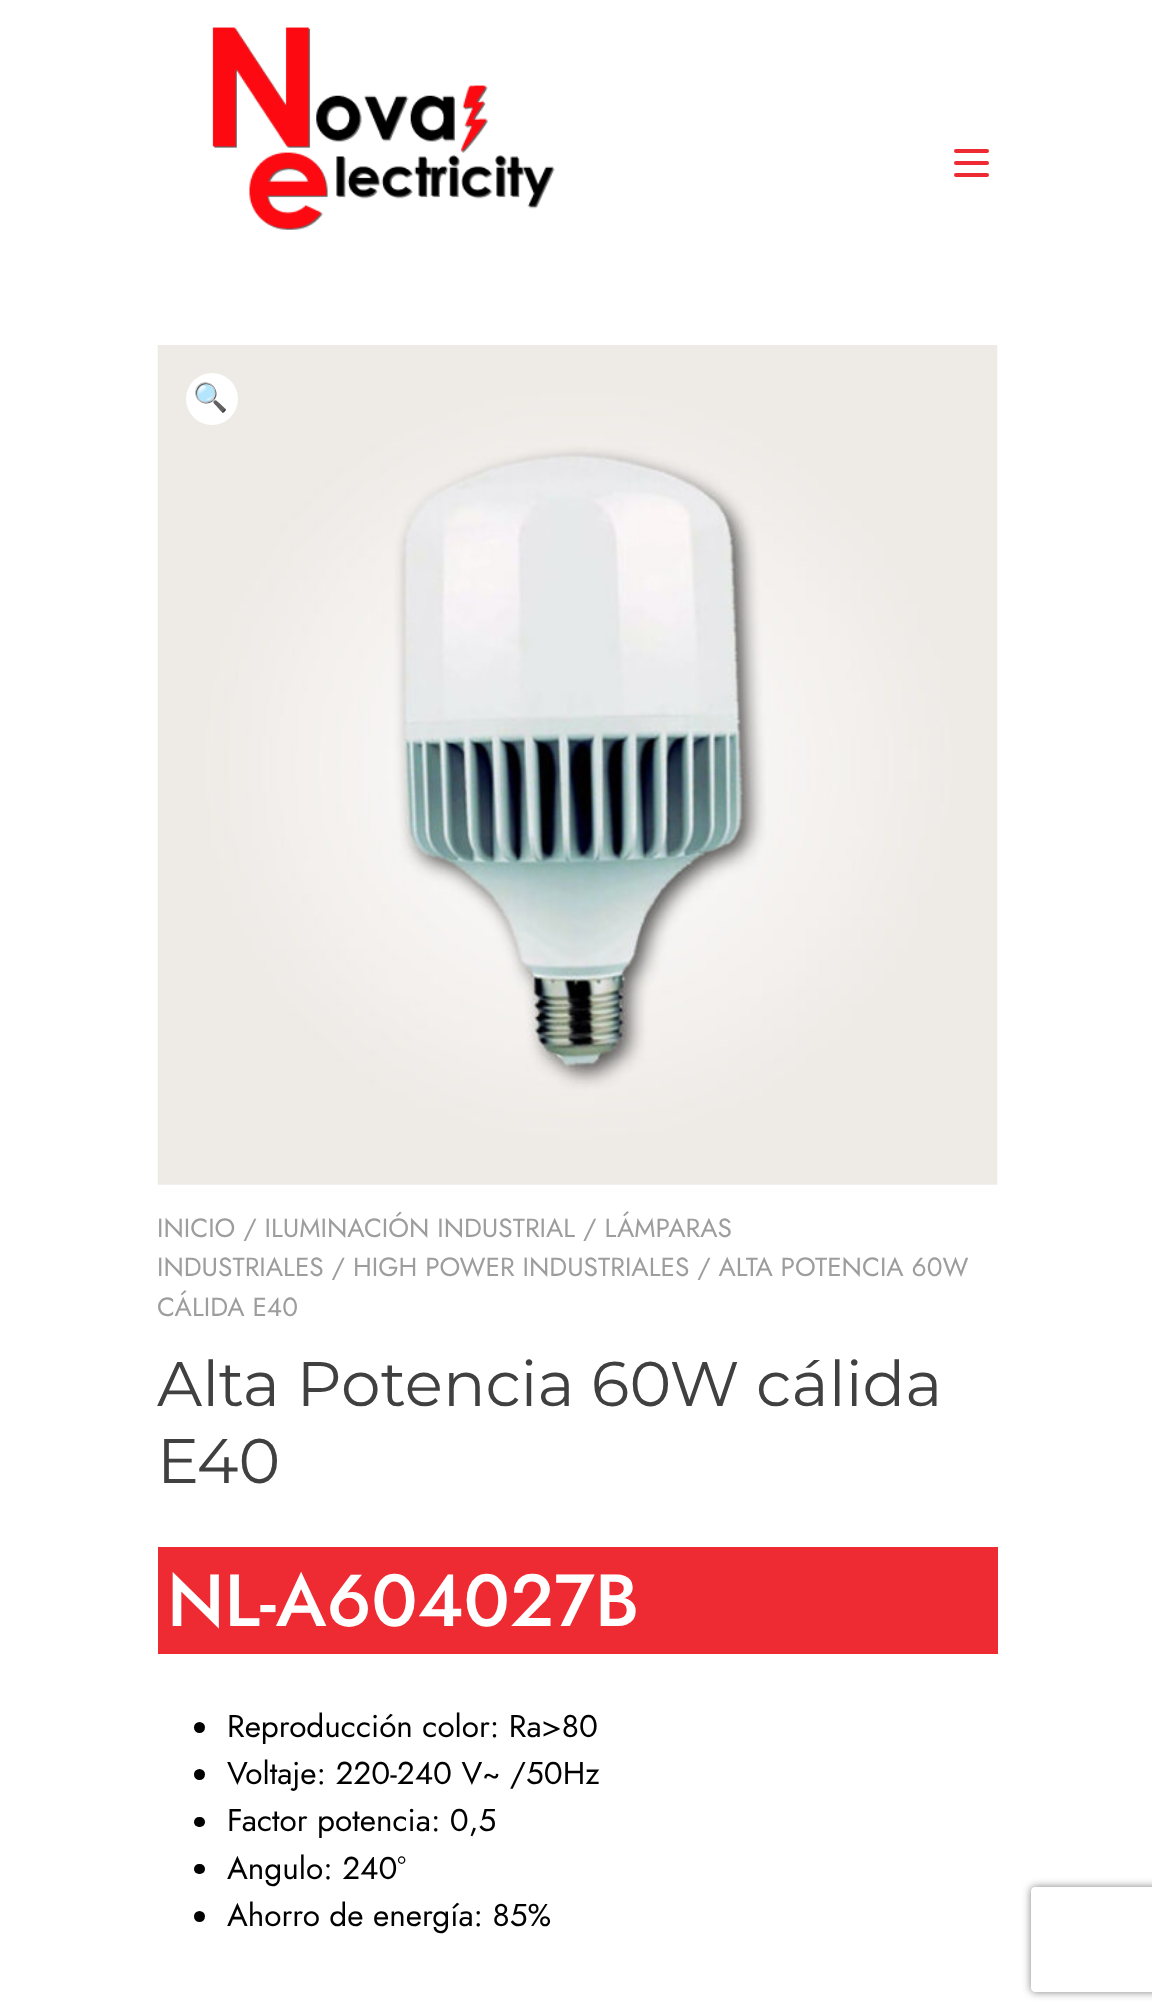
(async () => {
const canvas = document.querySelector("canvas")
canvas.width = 1152
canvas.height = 2015
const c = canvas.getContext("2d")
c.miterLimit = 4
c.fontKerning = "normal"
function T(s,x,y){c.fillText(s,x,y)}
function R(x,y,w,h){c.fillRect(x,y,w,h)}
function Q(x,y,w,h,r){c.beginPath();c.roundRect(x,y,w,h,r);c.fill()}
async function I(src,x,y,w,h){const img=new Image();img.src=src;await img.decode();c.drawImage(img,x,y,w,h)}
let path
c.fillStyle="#fff"
R(0,0,1152,2015)
await I("1.png",212,27,343,203)
c.fillStyle="#ee2a32"
Q(954,149,35,4,2)
Q(954,161,35,4,2)
Q(954,173,35,4,2)
await I("2.png",157,345,841,840)
c.fillStyle="#fff"
c.beginPath()
c.arc(212,399,26,0,7)
c.fill()
c.font="28px Noto Color Emoji"
c.fillStyle="#545454"
T("🔍",193,407)
c.font="26.25px Jost"
c.fillStyle="#9d9d9d"
T("INICIO / ILUMINACIÓN INDUSTRIAL / LÁMPARAS",157,1237)
T("INDUSTRIALES / HIGH POWER INDUSTRIALES / ALTA POTENCIA 60W",157,1276)
T("CÁLIDA E40",157,1316)
c.font="100 63px Montserrat"
c.fillStyle="#404040"
T("Alta Potencia 60W cálida",157,1406)
T("E40",157,1483)
c.fillStyle="#ee2a32"
R(158,1547,840,107)
c.font="500 73.5px Jost"
c.fillStyle="#fff"
T("NL-A604027B",167,1626)
c.fillStyle="#000"
c.beginPath()
c.arc(199.5,1727.5,5.5,0,7)
c.fill()
c.font="31.5px Jost"
T("Reproducción color: Ra>80",227,1737)
c.beginPath()
c.arc(199.5,1774.5,5.5,0,7)
c.fill()
T("Voltaje: 220-240 V~ /50Hz",227,1784)
Q(194,1817,11,10,5)
T("Factor potencia: 0,5",227,1831)
Q(194,1864,11,10,5)
T("Angulo: 240°",227,1879)
c.beginPath()
c.arc(199.5,1916.5,5.5,0,7)
c.fill()
T("Ahorro de energía: 85%",227,1926)
c.save()
path = new Path2D("M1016 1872h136v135h-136zm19 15h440c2 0 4 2 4 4v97c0 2-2 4-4 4h-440c-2 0-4-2-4-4v-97c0-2 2-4 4-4z")
c.clip(path,"evenodd")
c.fillStyle="#808080"
c.filter="blur(4.5px)"
c.beginPath()
c.roundRect(1031,1887,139,105,4)
c.fill()
c.filter="none"
c.restore()
})()
